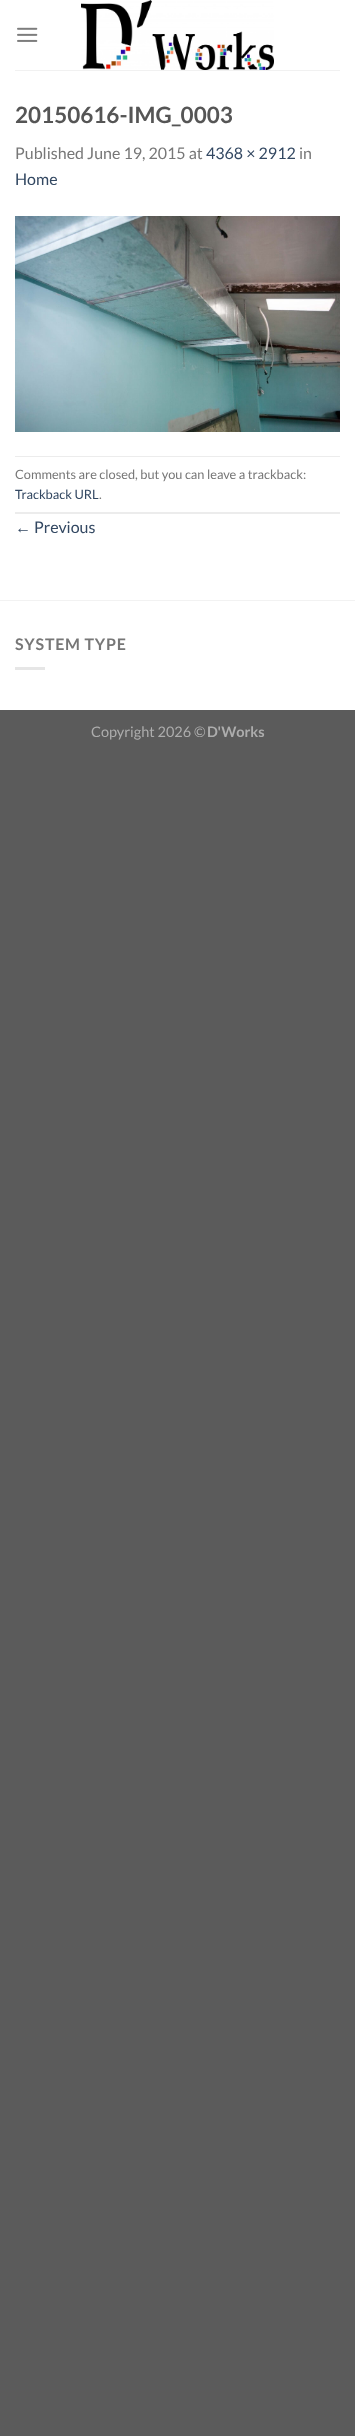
(async () => {
const canvas = document.querySelector("canvas")
canvas.width = 355
canvas.height = 2436
const c = canvas.getContext("2d")
c.miterLimit = 4
c.fontKerning = "normal"
function T(s,x,y){c.fillText(s,x,y)}
function R(x,y,w,h){c.fillRect(x,y,w,h)}
async function I(src,x,y,w,h){const img=new Image();img.src=src;await img.decode();c.drawImage(img,x,y,w,h)}
c.fillStyle="#5b5b5b"
R(0,0,355,2436)
c.fillStyle="#fff"
R(0,0,355,710)
await I("1.png",17,27,21,15)
await I("2.png",81,0,193,70)
c.fillStyle="#f1f1f1"
R(15,70,325,1)
c.font="bold 22.5px Lato"
c.fillStyle="#555"
T("20150616-IMG_0003",15,123)
c.font="16px Lato"
c.fillStyle="#777"
T("Published June 19, 2015 at",15,159)
c.fillStyle="#334862"
T("4368 × 2912",206,159)
c.fillStyle="#777"
T("in",299,159)
c.fillStyle="#334862"
T("Home",15,185)
await I("3.png",15,216,325,216)
c.fillStyle="#ececec"
R(15,456,325,1)
R(15,512,325,2)
c.font="12.8px Lato"
c.fillStyle="#777"
T("Comments are closed, but you can leave a trackback:",15,479)
c.fillStyle="#334862"
T("Trackback URL",15,499)
c.fillStyle="#777"
T(".",99,499)
c.font="16px Liberation Sans"
c.fillStyle="#334862"
T("←",15,533)
c.font="16px Lato"
T("Previous",34,533)
c.fillStyle="#f2f2f2"
R(0,600,355,1)
c.letterSpacing="0.75px"
c.font="bold 16px Lato"
c.fillStyle="#777"
T("SYSTEM TYPE",15,650)
c.fillStyle="#e6e6e6"
R(15,667,30,3)
c.letterSpacing="0px"
c.font="14.5px Lato"
c.fillStyle="#adadad"
T("Copyright 2026 ©",91,737)
c.font="bold 14.5px Lato"
T("D'Works",207,737)
})()
